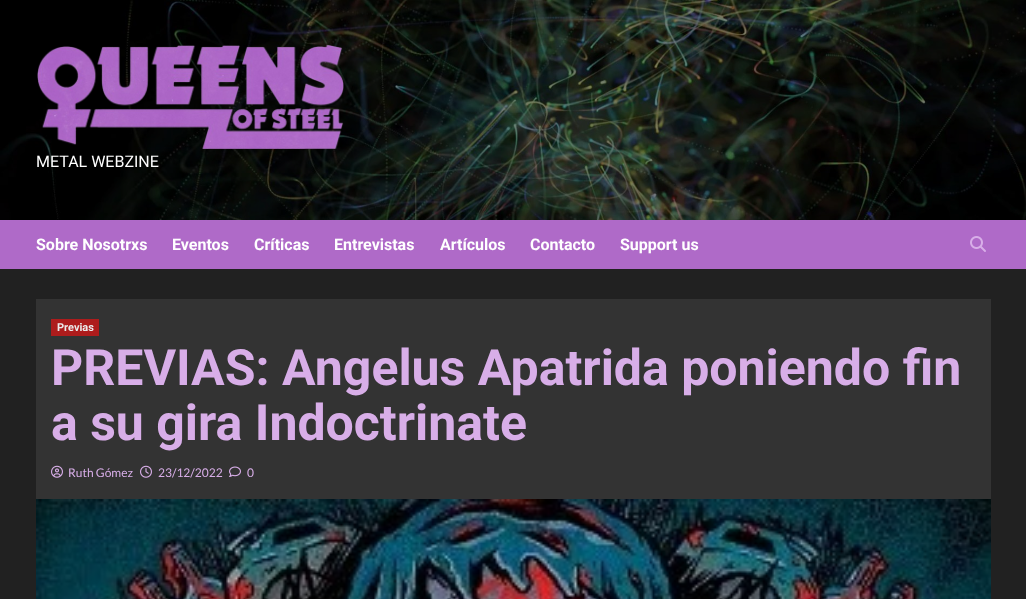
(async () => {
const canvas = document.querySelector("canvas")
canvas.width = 1026
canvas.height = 599
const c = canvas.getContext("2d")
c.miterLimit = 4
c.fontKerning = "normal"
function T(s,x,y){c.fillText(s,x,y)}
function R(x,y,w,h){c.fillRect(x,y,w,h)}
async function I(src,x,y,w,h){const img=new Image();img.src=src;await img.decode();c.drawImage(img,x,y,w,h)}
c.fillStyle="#212121"
R(0,0,1026,599)
await I("1.png",0,0,1026,220)
await I("2.png",37,45,307,104)
c.font="16px Roboto"
c.fillStyle="#fff"
T("METAL WEBZINE",36,167)
c.fillStyle="#af6ac8"
R(0,220,1026,49)
c.font="bold 16px Roboto"
c.fillStyle="#fff"
T("Sobre Nosotrxs",36,250)
T("Eventos",172,250)
T("Críticas",254,250)
T("Entrevistas",334,250)
T("Artículos",440,250)
T("Contacto",530,250)
T("Support us",620,250)
await I("3.png",970,236,16,16)
c.fillStyle="#333"
R(36,299,955,200)
c.fillStyle="#ad1c1c"
R(51,319,48,17)
c.font="bold 11px Roboto"
c.fillStyle="#ebebeb"
T("Previas",57,331)
c.font="bold 50px Roboto"
c.fillStyle="#d8aee8"
T("PREVIAS: Angelus Apatrida poniendo fin",51,385)
T("a su gira Indoctrinate",51,440)
await I("4.png",51,465,12,13)
c.font="12px Lato"
T("Ruth Gómez",68,477)
await I("5.png",140,465,12,13)
T("23/12/2022",158,477)
await I("6.png",229,466,12,11)
T("0",247,477)
await I("7.png",36,499,955,100)
})()
